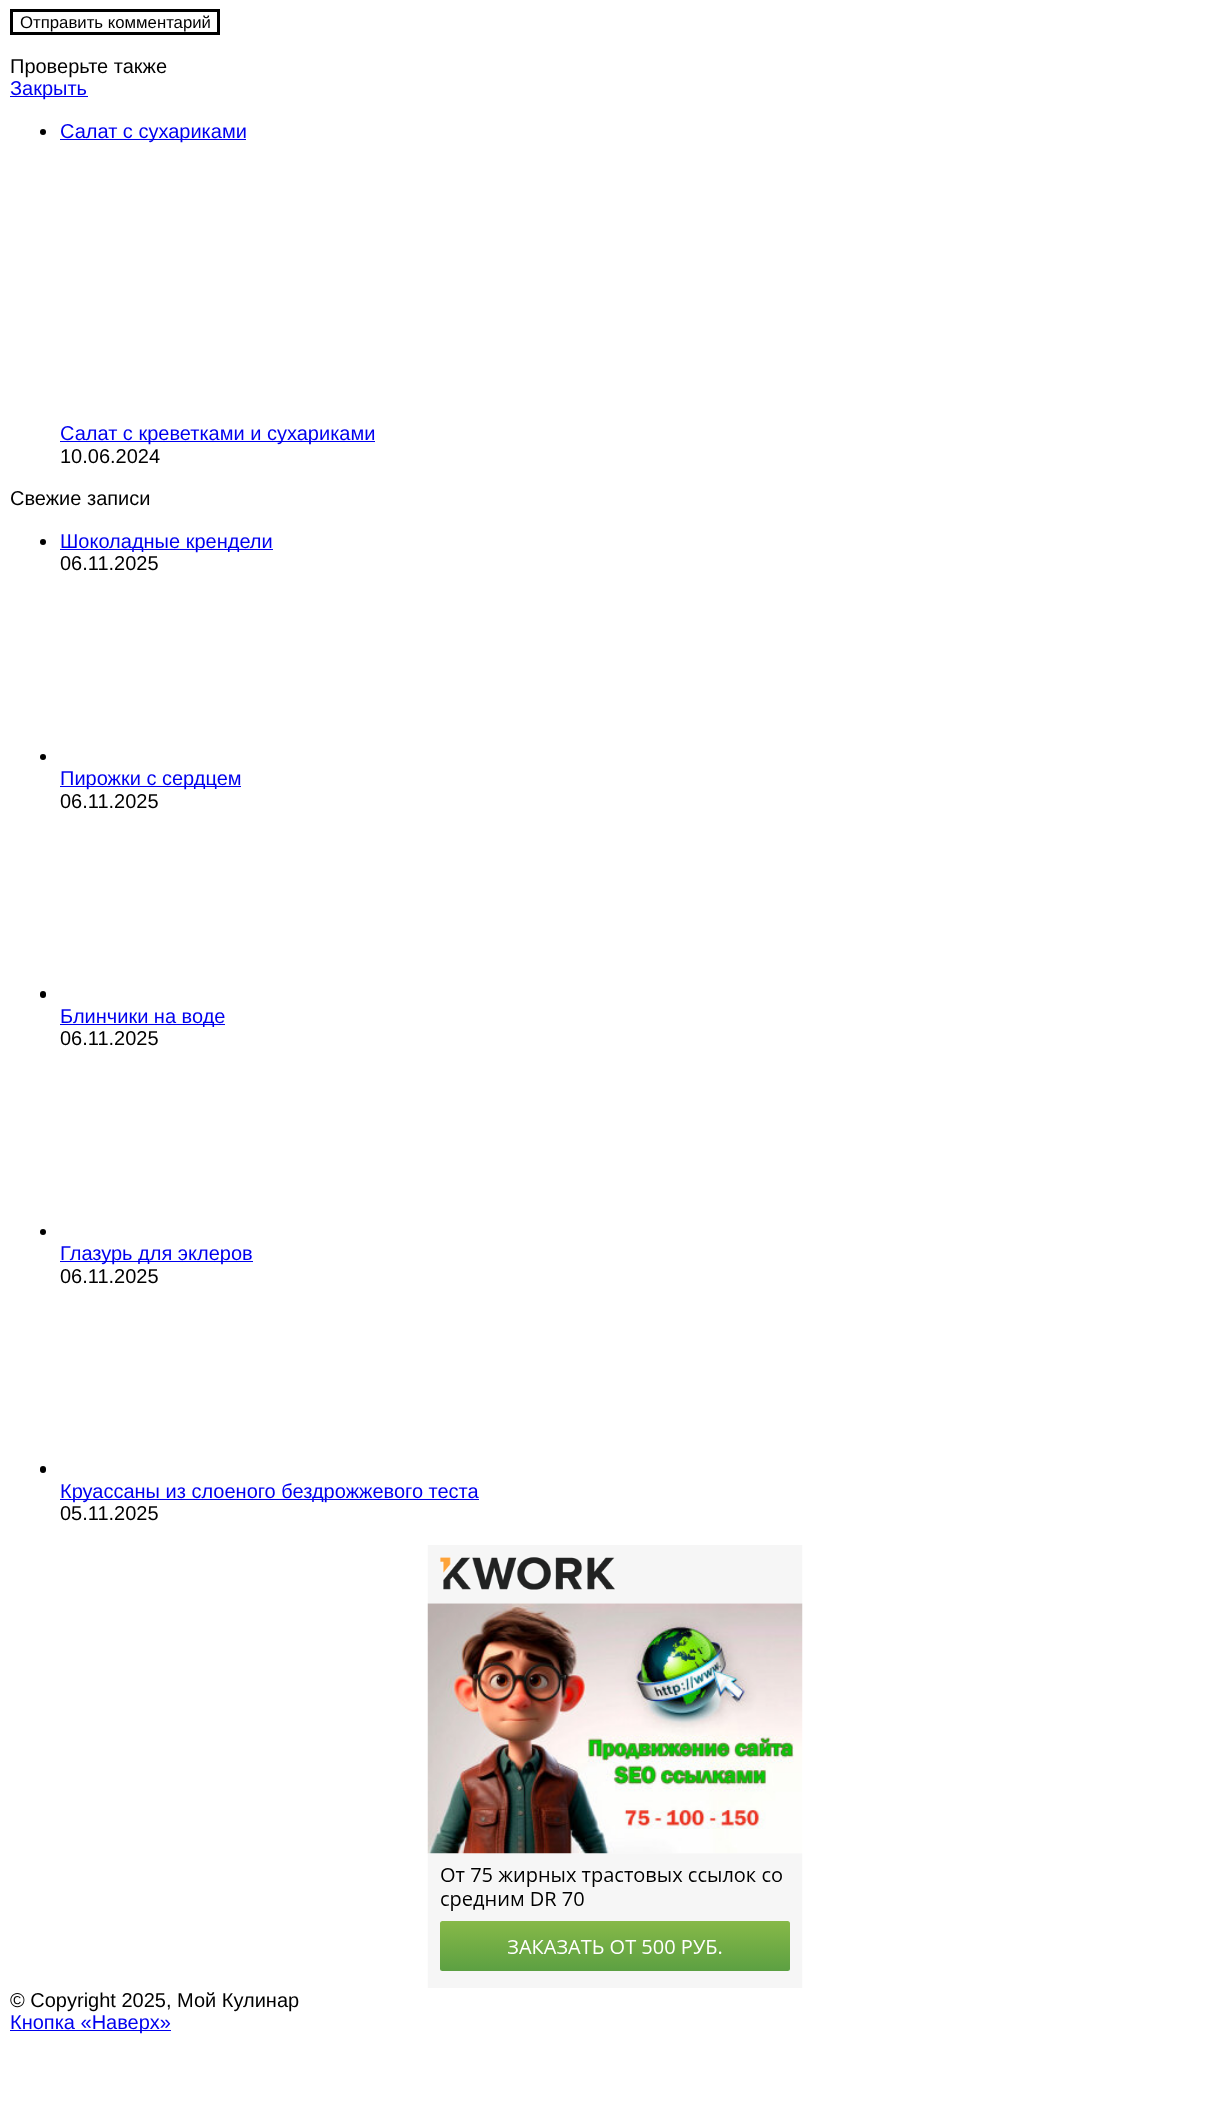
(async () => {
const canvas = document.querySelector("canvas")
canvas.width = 1230
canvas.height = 2110
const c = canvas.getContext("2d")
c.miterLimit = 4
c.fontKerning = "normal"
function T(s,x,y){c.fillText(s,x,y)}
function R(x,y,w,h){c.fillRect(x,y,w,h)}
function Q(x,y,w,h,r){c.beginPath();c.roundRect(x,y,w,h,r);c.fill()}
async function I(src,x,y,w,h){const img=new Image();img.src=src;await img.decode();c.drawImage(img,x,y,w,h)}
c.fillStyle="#fff"
R(0,0,1230,2110)
c.strokeStyle="#000"
c.lineWidth=3
c.strokeRect(11.5,10.5,207,23)
c.font="16.75px Liberation Sans"
c.fillStyle="#000"
T("Отправить комментарий",20,28)
c.font="20px Liberation Sans"
T("Проверьте также",10,73)
c.fillStyle="#00e"
R(10,96,78,1)
T("Закрыть",10,95)
c.fillStyle="#000"
c.beginPath()
c.arc(43,132,3,0,7)
c.fill()
c.fillStyle="#00e"
R(60,139,186,1)
T("Салат с сухариками",60,138)
R(60,441,315,1)
T("Салат с креветками и сухариками",60,440)
c.fillStyle="#000"
T("10.06.2024",60,463)
T("Свежие записи",10,505)
c.beginPath()
c.arc(43,542,3,0,7)
c.fill()
c.fillStyle="#00e"
R(60,549,213,1)
T("Шоколадные крендели",60,548)
c.fillStyle="#000"
T("06.11.2025",60,570)
c.beginPath()
c.arc(43,757,3,0,7)
c.fill()
c.fillStyle="#00e"
R(60,786,181,1)
T("Пирожки с сердцем",60,785)
c.fillStyle="#000"
T("06.11.2025",60,808)
Q(40,991,6,7,3)
c.fillStyle="#00e"
R(60,1024,165,1)
T("Блинчики на воде",60,1023)
c.fillStyle="#000"
T("06.11.2025",60,1045)
c.beginPath()
c.arc(43,1232,3,0,7)
c.fill()
c.fillStyle="#00e"
R(60,1261,193,1)
T("Глазурь для эклеров",60,1260)
c.fillStyle="#000"
T("06.11.2025",60,1283)
Q(40,1466,6,7,3)
c.fillStyle="#00e"
R(60,1499,419,1)
T("Круассаны из слоеного бездрожжевого теста",60,1498)
c.fillStyle="#000"
T("05.11.2025",60,1520)
await I("1.png",427,1545,376,443)
T("© Copyright 2025, Мой Кулинар",10,2007)
c.fillStyle="#00e"
R(10,2030,161,1)
T("Кнопка «Наверх»",10,2029)
})()
